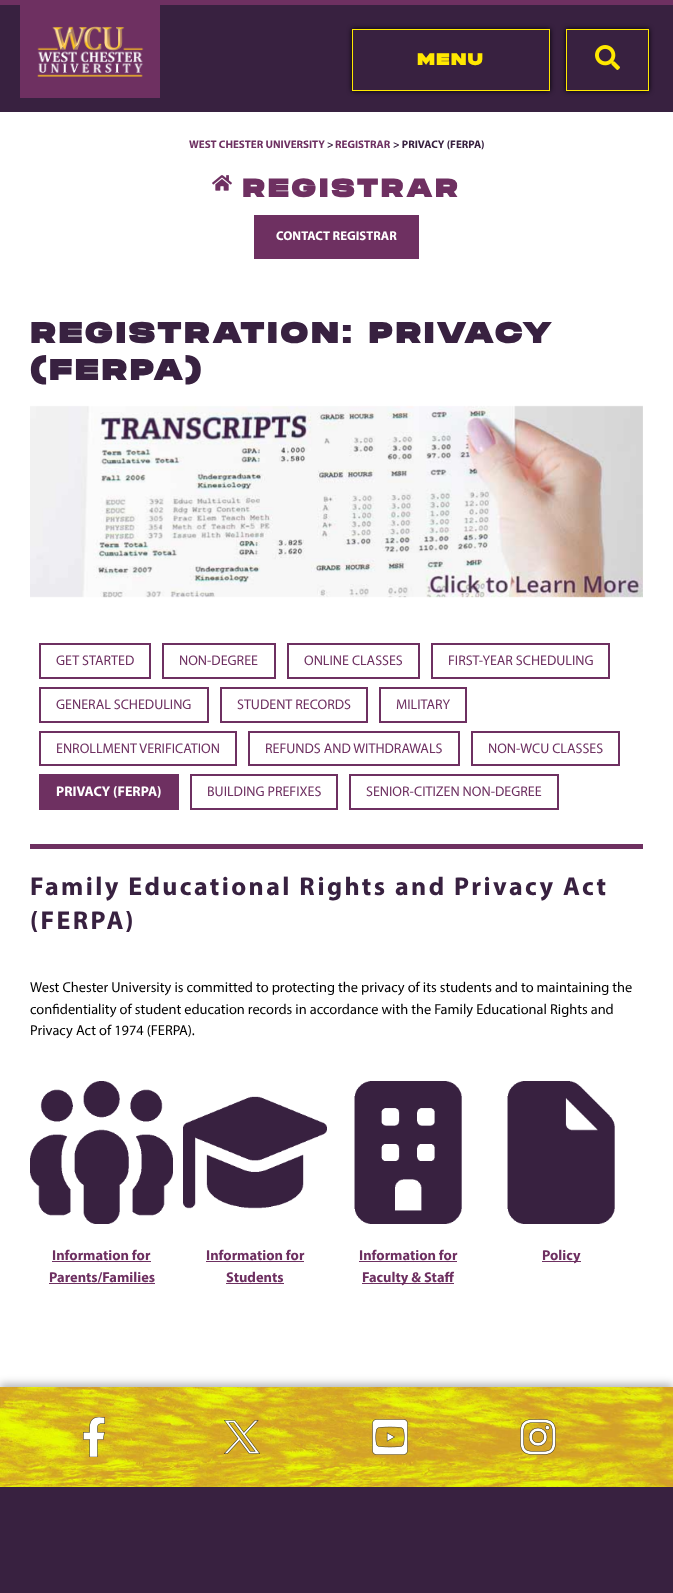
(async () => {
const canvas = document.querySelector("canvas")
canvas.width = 673
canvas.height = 1593
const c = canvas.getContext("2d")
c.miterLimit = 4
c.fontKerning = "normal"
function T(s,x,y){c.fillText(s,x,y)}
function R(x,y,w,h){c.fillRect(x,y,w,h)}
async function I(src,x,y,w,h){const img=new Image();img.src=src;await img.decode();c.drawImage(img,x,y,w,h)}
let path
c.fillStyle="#382140"
R(0,0,673,1593)
c.fillStyle="#6e3061"
R(0,0,673,5)
await I("1.png",20,5,140,93)
c.save()
path = new Path2D("M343 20h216v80h-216zm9 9h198v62h-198z")
c.clip(path,"evenodd")
c.fillStyle="#000"
c.filter="blur(2.5px)"
c.beginPath()
c.rect(352,29,198,62)
c.fill()
c.filter="none"
c.restore()
c.strokeStyle="#ffe800"
c.strokeRect(352.5,29.5,197,61)
c.letterSpacing="1.5px"
c.font="bold 16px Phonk"
c.fillStyle="#ffe800"
T("MENU",417,65)
c.save()
path = new Path2D("M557 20h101v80h-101zm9 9h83v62h-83z")
c.clip(path,"evenodd")
c.fillStyle="#000"
c.filter="blur(2.5px)"
c.beginPath()
c.rect(566,29,83,62)
c.fill()
c.filter="none"
c.restore()
c.strokeRect(566.5,29.5,82,61)
await I("2.png",595,45,25,25)
c.fillStyle="#fff"
R(0,112,673,1275)
c.letterSpacing="0px"
c.font="bold 11px Myriad"
c.fillStyle="#6e3061"
T("WEST CHESTER UNIVERSITY",189,148)
c.fillStyle="#382140"
T(">",327,148)
c.fillStyle="#6e3061"
T("REGISTRAR",335,148)
c.fillStyle="#382140"
T("> PRIVACY (FERPA)",393,148)
await I("3.png",212,175,20,16)
c.letterSpacing="3.2px"
c.font="bold 25.5px Phonk"
c.fillStyle="#6e3061"
T("REGISTRAR",242,197)
R(254,215,165,44)
c.letterSpacing="0px"
c.font="bold 12.75px Myriad"
c.fillStyle="#fff"
T("CONTACT REGISTRAR",276,240)
c.letterSpacing="3.2px"
c.font="bold 28.75px Phonk"
c.fillStyle="#382140"
T("REGISTRATION: PRIVACY",30,343)
T("(FERPA)",30,380)
await I("4.png",30,405,613,193)
c.fillStyle="#6e3061"
R(30,844,613,5)
c.strokeStyle="#6e3061"
c.lineWidth=2
c.strokeRect(40,644,110,34)
c.letterSpacing="0px"
c.font="14px Myriad"
T("GET STARTED",56,665)
c.strokeRect(163,644,112,34)
T("NON-DEGREE",179,665)
c.strokeRect(288,644,131,34)
T("ONLINE CLASSES",304,665)
c.strokeRect(432,644,177,34)
T("FIRST-YEAR SCHEDULING",448,665)
c.strokeRect(40,688,168,34)
T("GENERAL SCHEDULING",56,709)
c.strokeRect(221,688,146,34)
T("STUDENT RECORDS",237,709)
c.strokeRect(380,688,86,34)
T("MILITARY",396,709)
c.strokeRect(40,732,196,33)
T("ENROLLMENT VERIFICATION",56,753)
c.strokeRect(249,732,210,33)
T("REFUNDS AND WITHDRAWALS",265,753)
c.strokeRect(472,732,147,33)
T("NON-WCU CLASSES",488,753)
R(39,774,140,36)
c.font="bold 14px Myriad"
c.fillStyle="#fff"
T("PRIVACY (FERPA)",56,796)
c.strokeRect(191,775,146,34)
c.font="14px Myriad"
c.fillStyle="#6e3061"
T("BUILDING PREFIXES",207,796)
c.strokeRect(350,775,208,34)
T("SENIOR-CITIZEN NON-DEGREE",366,796)
c.letterSpacing="2.4px"
c.font="bold 25.9px Myriad"
c.fillStyle="#382140"
T("Family Educational Rights and Privacy Act",30,895)
T("(FERPA)",30,929)
c.letterSpacing="0px"
c.font="14.4px Myriad"
c.fillStyle="#000"
T("West Chester University is committed to protecting the privacy of its students and to maintaining the",30,992)
T("confidentiality of student education records in accordance with the Family Educational Rights and",30,1014)
T("Privacy Act of 1974 (FERPA).",30,1035)
await I("5.png",30,1081,143,143)
c.font="bold 14.4px Myriad"
c.fillStyle="#6e3061"
T("Information for",52,1260)
R(52,1261,99,1)
T("Parents/Families",49,1282)
R(49,1283,106,1)
await I("6.png",183,1096,144,113)
T("Information for",206,1260)
R(206,1261,98,1)
T("Students",226,1282)
R(226,1283,58,1)
await I("7.png",354,1081,108,143)
T("Information for",359,1260)
R(359,1261,98,1)
R(362,1283,92,1)
T("Faculty & Staff",362,1282)
await I("8.png",507,1081,108,143)
R(542,1261,39,1)
T("Policy",542,1260)
c.fillStyle="#0000004d"
c.filter="blur(4px)"
c.beginPath()
c.rect(0,1384,673,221)
c.fill()
c.filter="none"
c.fillStyle="#382140"
R(0,1487,673,106)
await I("9.png",0,1387,673,100)
await I("10.png",83,1417,22,40)
await I("11.png",223,1420,37,34)
await I("12.png",372,1419,36,36)
await I("13.png",520,1419,36,36)
})()
